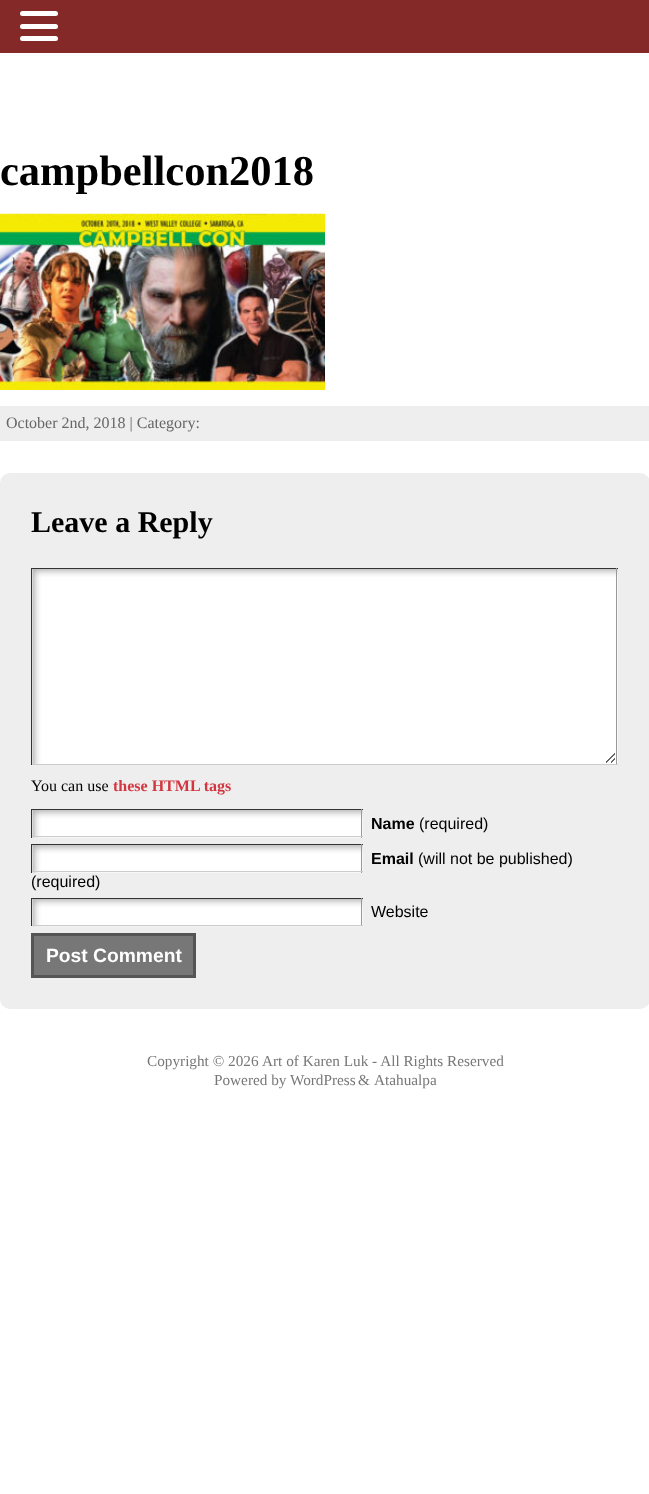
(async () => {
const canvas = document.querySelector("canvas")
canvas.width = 649
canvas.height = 1494
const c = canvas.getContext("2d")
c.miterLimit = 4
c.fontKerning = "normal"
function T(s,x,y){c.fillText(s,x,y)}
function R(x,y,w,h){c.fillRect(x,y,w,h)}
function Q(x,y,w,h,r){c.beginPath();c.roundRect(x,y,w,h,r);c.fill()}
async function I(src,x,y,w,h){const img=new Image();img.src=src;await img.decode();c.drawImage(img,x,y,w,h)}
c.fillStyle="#fff"
R(0,0,649,1494)
c.font="bold 42.5px Liberation Serif"
c.fillStyle="#000"
T("campbellcon2018",0,185)
await I("1.png",0,213,325,177)
c.fillStyle="#eee"
R(0,406,649,35)
c.font="16px Liberation Serif"
c.fillStyle="#666"
T("October 2nd, 2018 | Category:",6,428)
c.fillStyle="#eee"
Q(0,473,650,536,10)
c.font="bold 30px Liberation Serif"
c.fillStyle="#000"
T("Leave a Reply",31,532)
await I("2.png",32,569,586,195)
c.fillStyle="#333"
R(31,568,587,1)
c.fillStyle="#999"
R(616,568,1,197)
c.fillStyle="#ccc"
R(31,764,587,1)
c.fillStyle="#333"
R(31,568,1,197)
c.font="16px Liberation Serif"
c.fillStyle="#000"
T("You can use",31,791)
c.font="bold 16px Liberation Serif"
c.fillStyle="#d23641"
T("these HTML tags",113,791)
await I("3.png",32,810,331,28)
c.fillStyle="#333"
R(31,809,332,1)
c.fillStyle="#999"
R(361,809,1,29)
c.fillStyle="#ccc"
R(31,836,332,1)
c.fillStyle="#333"
R(31,809,1,29)
c.font="bold 16px Liberation Sans"
c.fillStyle="#000"
T("Name",371,829)
c.font="16px Liberation Sans"
T("(required)",419,829)
await I("3.png",32,845,331,28)
c.fillStyle="#333"
R(31,844,332,1)
c.fillStyle="#999"
R(361,844,1,29)
c.fillStyle="#ccc"
R(31,871,332,1)
c.fillStyle="#333"
R(31,844,1,29)
c.font="bold 16px Liberation Sans"
c.fillStyle="#000"
T("Email",371,864)
c.font="16px Liberation Sans"
T("(will not be published)",418,864)
T("(required)",31,887)
await I("4.png",32,899,331,28)
c.fillStyle="#333"
R(31,898,332,1)
c.fillStyle="#999"
R(361,898,1,28)
c.fillStyle="#ccc"
R(31,925,332,1)
c.fillStyle="#333"
R(31,898,1,28)
c.fillStyle="#000"
T("Website",371,917)
c.fillStyle="#777"
c.beginPath()
c.rect(32.5,934.5,162,42)
c.fill()
c.strokeStyle="#555"
c.lineWidth=3
c.stroke()
c.font="bold 19.25px Liberation Sans"
c.fillStyle="#fff"
T("Post Comment",46,962)
c.fillStyle="#852928"
R(0,0,649,53)
c.fillStyle="#fff"
Q(20,11,38,5,2.5)
Q(20,24,38,5,2.5)
Q(20,36,38,5,2.5)
c.font="15.25px Liberation Serif"
c.fillStyle="#777"
T("Copyright © 2026",147,1066)
T("Art of Karen Luk - All Rights Reserved",262,1066)
T("Powered by WordPress",214,1085)
T("&",358,1085)
T("Atahualpa",374,1085)
})()
